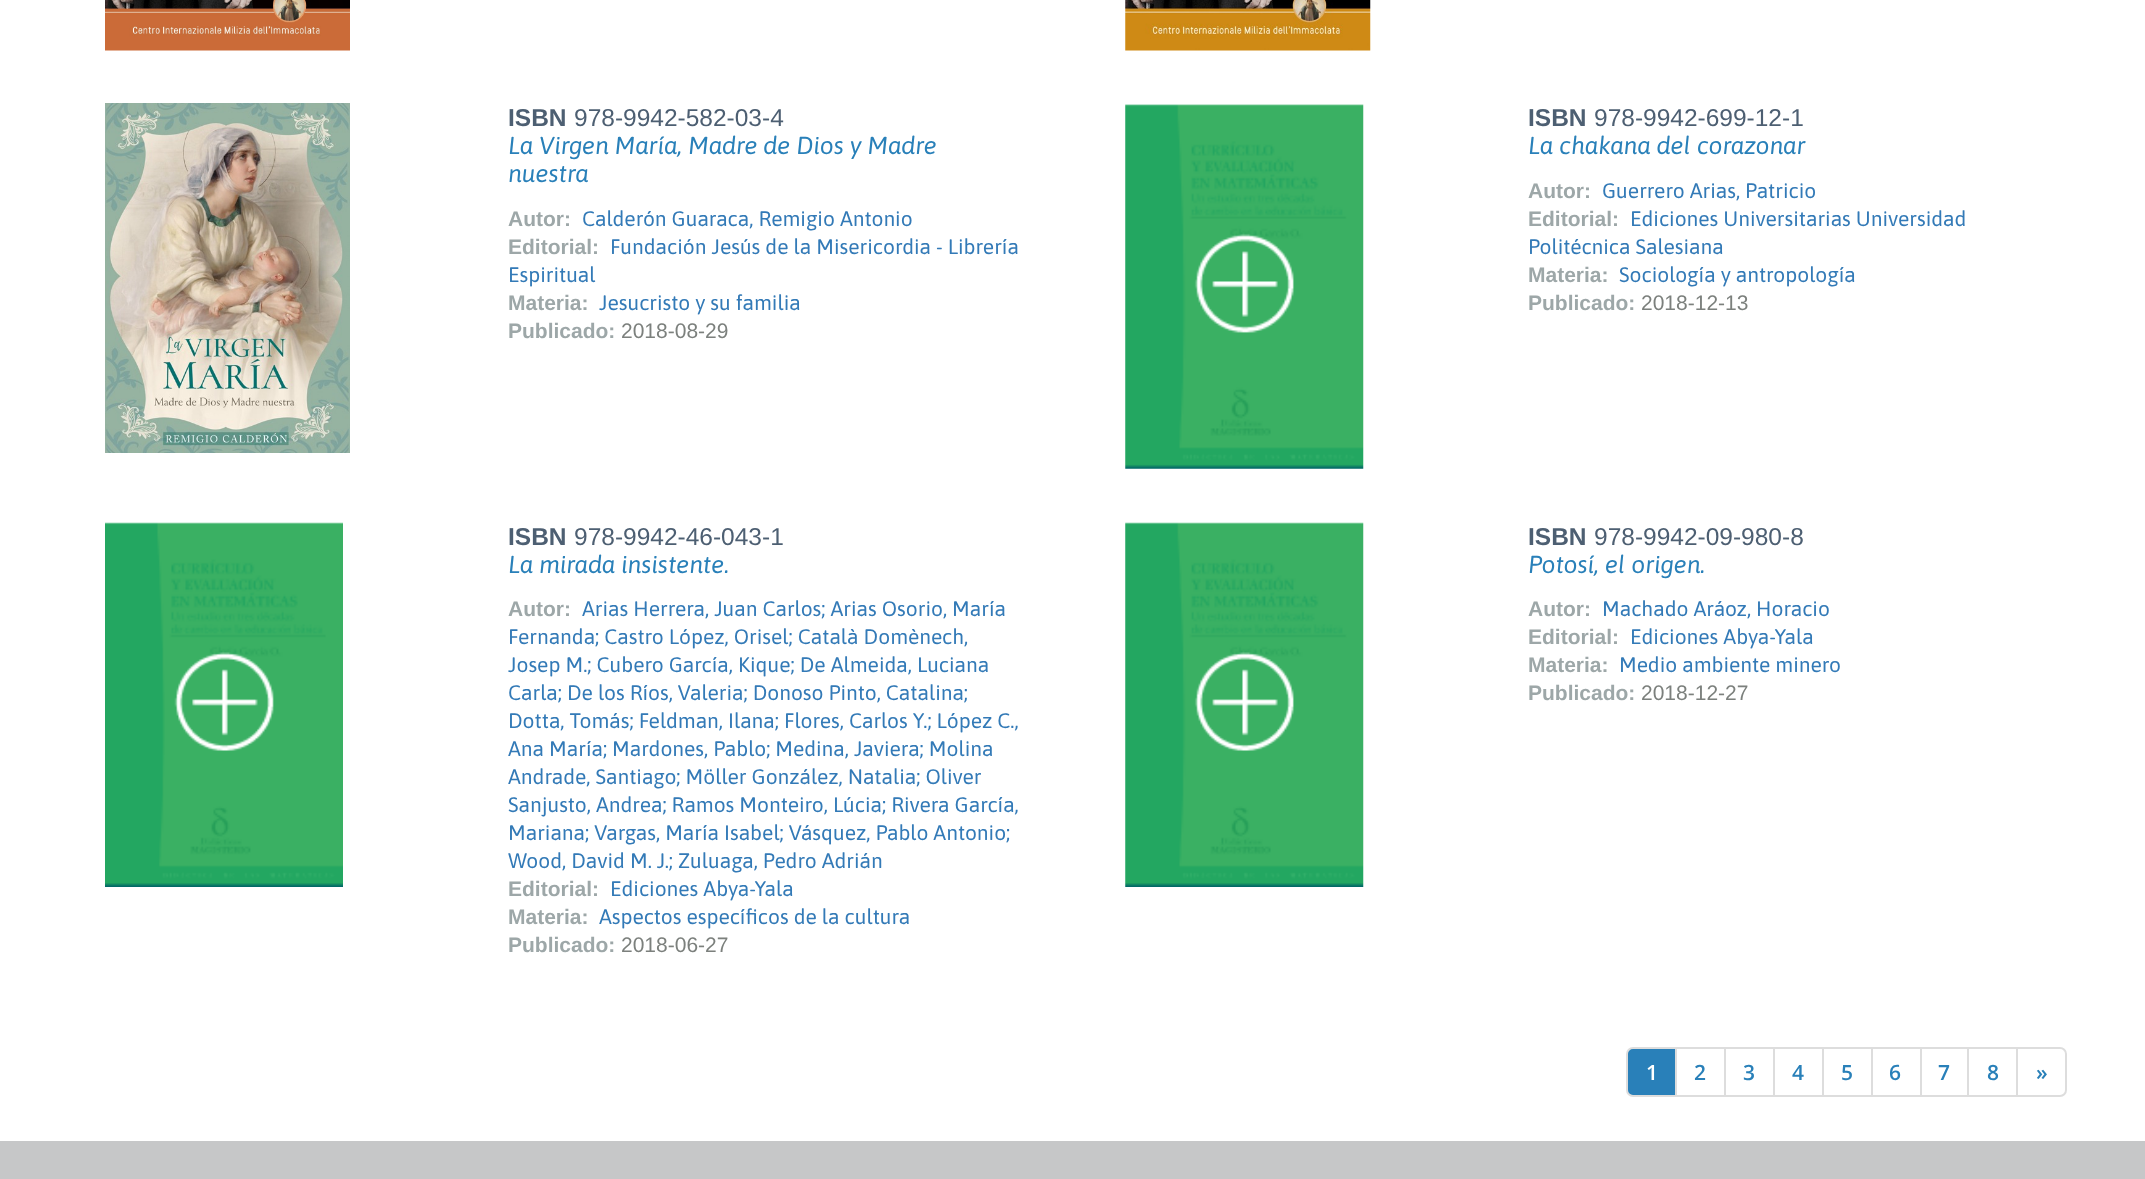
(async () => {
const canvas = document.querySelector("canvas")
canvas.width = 2145
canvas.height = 1179
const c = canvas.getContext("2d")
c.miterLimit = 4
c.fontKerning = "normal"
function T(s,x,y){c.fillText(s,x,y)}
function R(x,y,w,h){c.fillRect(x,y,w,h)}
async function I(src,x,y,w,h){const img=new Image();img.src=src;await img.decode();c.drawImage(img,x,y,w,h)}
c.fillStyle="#fff"
R(0,0,2145,1179)
await I("1.png",105,0,245,51)
await I("2.png",1125,0,246,51)
await I("3.png",105,103,245,350)
c.font="bold 24.5px Liberation Sans"
c.fillStyle="#4d5f72"
T("ISBN",508,126)
c.font="24.5px Liberation Sans"
T("978-9942-582-03-4",574,126)
c.font="italic 24.5px Asap"
c.fillStyle="#2980b9"
T("La Virgen María, Madre de Dios y Madre",508,154)
T("nuestra",508,182)
c.font="bold 21px Liberation Sans"
c.fillStyle="#9da7a8"
T("Autor:",508,226)
c.font="21px Asap"
c.fillStyle="#337ab7"
T("Calderón Guaraca, Remigio Antonio",582,226)
c.font="bold 21px Liberation Sans"
c.fillStyle="#9da7a8"
T("Editorial:",508,254)
c.font="21px Asap"
c.fillStyle="#337ab7"
T("Fundación Jesús de la Misericordia - Librería",610,254)
T("Espiritual",508,282)
c.font="bold 21px Liberation Sans"
c.fillStyle="#9da7a8"
T("Materia:",508,310)
c.font="21px Asap"
c.fillStyle="#337ab7"
T("Jesucristo y su familia",599,310)
c.font="bold 21px Liberation Sans"
c.fillStyle="#9da7a8"
T("Publicado:",508,338)
c.font="21px Liberation Sans"
c.fillStyle="#7c807d"
T("2018-08-29",621,338)
await I("4.png",1125,104,239,365)
c.font="bold 24.5px Liberation Sans"
c.fillStyle="#4d5f72"
T("ISBN",1528,126)
c.font="24.5px Liberation Sans"
T("978-9942-699-12-1",1594,126)
c.font="italic 24.5px Asap"
c.fillStyle="#2980b9"
T("La chakana del corazonar",1528,154)
c.font="bold 21px Liberation Sans"
c.fillStyle="#9da7a8"
T("Autor:",1528,198)
c.font="21px Asap"
c.fillStyle="#337ab7"
T("Guerrero Arias, Patricio",1602,198)
c.font="bold 21px Liberation Sans"
c.fillStyle="#9da7a8"
T("Editorial:",1528,226)
c.font="21px Asap"
c.fillStyle="#337ab7"
T("Ediciones Universitarias Universidad",1630,226)
T("Politécnica Salesiana",1528,254)
c.font="bold 21px Liberation Sans"
c.fillStyle="#9da7a8"
T("Materia:",1528,282)
c.font="21px Asap"
c.fillStyle="#337ab7"
T("Sociología y antropología",1619,282)
c.font="bold 21px Liberation Sans"
c.fillStyle="#9da7a8"
T("Publicado:",1528,310)
c.font="21px Liberation Sans"
c.fillStyle="#7c807d"
T("2018-12-13",1641,310)
await I("5.png",105,522,238,365)
c.font="bold 24.5px Liberation Sans"
c.fillStyle="#4d5f72"
T("ISBN",508,545)
c.font="24.5px Liberation Sans"
T("978-9942-46-043-1",574,545)
c.font="italic 24.5px Asap"
c.fillStyle="#2980b9"
T("La mirada insistente.",508,573)
c.font="bold 21px Liberation Sans"
c.fillStyle="#9da7a8"
T("Autor:",508,616)
c.font="21px Asap"
c.fillStyle="#337ab7"
T("Arias Herrera, Juan Carlos; Arias Osorio, María",582,616)
T("Fernanda; Castro López, Orisel; Català Domènech,",508,644)
T("Josep M.; Cubero García, Kique; De Almeida, Luciana",508,672)
T("Carla; De los Ríos, Valeria; Donoso Pinto, Catalina;",508,700)
T("Dotta, Tomás; Feldman, Ilana; Flores, Carlos Y.; López C.,",508,728)
T("Ana María; Mardones, Pablo; Medina, Javiera; Molina",508,756)
T("Andrade, Santiago; Möller González, Natalia; Oliver",508,784)
T("Sanjusto, Andrea; Ramos Monteiro, Lúcia; Rivera García,",508,812)
T("Mariana; Vargas, María Isabel; Vásquez, Pablo Antonio;",508,840)
T("Wood, David M. J.; Zuluaga, Pedro Adrián",508,868)
c.font="bold 21px Liberation Sans"
c.fillStyle="#9da7a8"
T("Editorial:",508,896)
c.font="21px Asap"
c.fillStyle="#337ab7"
T("Ediciones Abya-Yala",610,896)
c.font="bold 21px Liberation Sans"
c.fillStyle="#9da7a8"
T("Materia:",508,924)
c.font="21px Asap"
c.fillStyle="#337ab7"
T("Aspectos específicos de la cultura",599,924)
c.font="bold 21px Liberation Sans"
c.fillStyle="#9da7a8"
T("Publicado:",508,952)
c.font="21px Liberation Sans"
c.fillStyle="#7c807d"
T("2018-06-27",621,952)
await I("6.png",1125,522,239,365)
c.font="bold 24.5px Liberation Sans"
c.fillStyle="#4d5f72"
T("ISBN",1528,545)
c.font="24.5px Liberation Sans"
T("978-9942-09-980-8",1594,545)
c.font="italic 24.5px Asap"
c.fillStyle="#2980b9"
T("Potosí, el origen.",1528,573)
c.font="bold 21px Liberation Sans"
c.fillStyle="#9da7a8"
T("Autor:",1528,616)
c.font="21px Asap"
c.fillStyle="#337ab7"
T("Machado Aráoz, Horacio",1602,616)
c.font="bold 21px Liberation Sans"
c.fillStyle="#9da7a8"
T("Editorial:",1528,644)
c.font="21px Asap"
c.fillStyle="#337ab7"
T("Ediciones Abya-Yala",1630,644)
c.font="bold 21px Liberation Sans"
c.fillStyle="#9da7a8"
T("Materia:",1528,672)
c.font="21px Asap"
c.fillStyle="#337ab7"
T("Medio ambiente minero",1619,672)
c.font="bold 21px Liberation Sans"
c.fillStyle="#9da7a8"
T("Publicado:",1528,700)
c.font="21px Liberation Sans"
c.fillStyle="#7c807d"
T("2018-12-27",1641,700)
c.fillStyle="#2980b9"
c.beginPath()
c.roundRect(1627,1048,49,48,[6,0,0,6])
c.fill()
c.strokeStyle="#ddd"
c.lineWidth=2
c.stroke()
c.font="600 21px Open Sans"
c.fillStyle="#fff"
T("1",1646,1080)
c.strokeRect(1676,1048,49,48)
c.fillStyle="#2980b9"
T("2",1694,1080)
c.strokeRect(1725,1048,49,48)
T("3",1743,1080)
c.strokeRect(1774,1048,49,48)
T("4",1792,1080)
c.strokeRect(1823,1048,49,48)
T("5",1841,1080)
c.strokeRect(1872,1048,49,48)
T("6",1889,1080)
c.strokeRect(1921,1048,47,48)
T("7",1938,1080)
c.strokeRect(1968,1048,49,48)
T("8",1987,1080)
c.beginPath()
c.roundRect(2017,1048,49,48,[0,6,6,0])
c.stroke()
T("»",2036,1080)
c.fillStyle="#c6c7c8"
R(0,1141,2145,38)
})()
